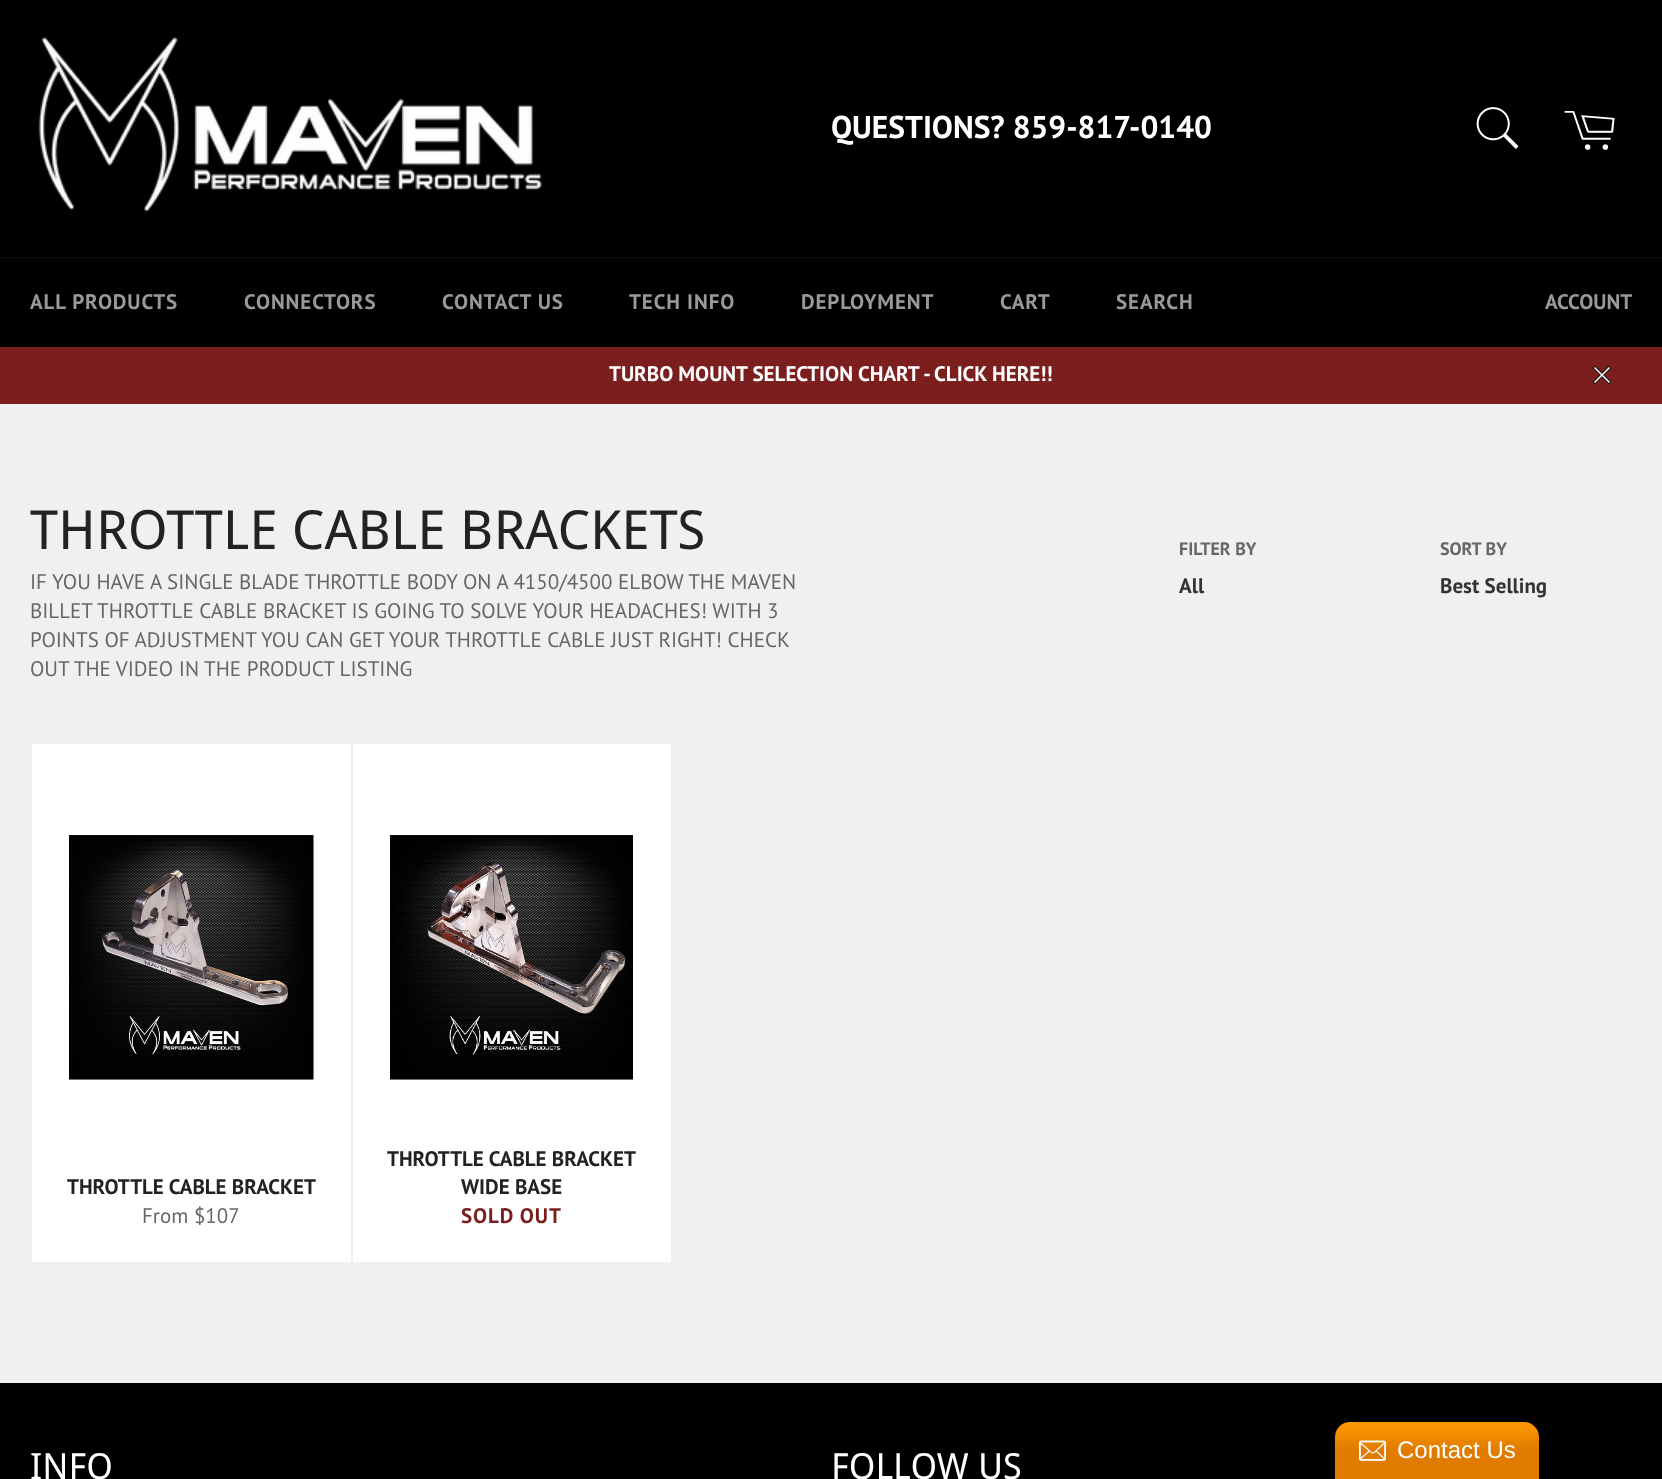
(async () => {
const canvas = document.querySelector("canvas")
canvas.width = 1662
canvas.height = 1479
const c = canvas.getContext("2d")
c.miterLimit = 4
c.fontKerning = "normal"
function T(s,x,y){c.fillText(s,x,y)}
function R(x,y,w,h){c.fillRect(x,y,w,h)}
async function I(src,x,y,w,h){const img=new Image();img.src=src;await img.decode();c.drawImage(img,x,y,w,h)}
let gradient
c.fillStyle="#f0f0f0"
R(0,0,1662,1479)
c.fillStyle="#000"
R(0,0,1662,257)
await I("1.png",38,37,504,175)
c.font="bold 31.5px PT Sans"
c.fillStyle="#fff"
T("QUESTIONS? 859-817-0140",831,138)
await I("2.png",1476,107,43,42)
await I("3.png",1564,111,51,39)
c.fillStyle="#0d0d0d"
R(0,257,1662,1)
c.fillStyle="#000"
R(0,258,1662,89)
c.letterSpacing="0.9px"
c.font="bold 21px PT Sans"
c.fillStyle="#999"
T("ALL PRODUCTS",30,309)
T("CONNECTORS",244,309)
T("CONTACT US",442,309)
T("TECH INFO",629,309)
T("DEPLOYMENT",801,309)
T("CART",1000,309)
T("SEARCH",1116,309)
c.letterSpacing="0px"
T("ACCOUNT",1545,309)
c.fillStyle="#7a1e1e"
R(0,347,1662,57)
c.fillStyle="#fff"
T("TURBO MOUNT SELECTION CHART - CLICK HERE!!",609,381)
await I("4.png",1592,365,20,20)
c.font="54px Droid Sans"
c.fillStyle="#222"
T("THROTTLE CABLE BRACKETS",30,549)
c.font="21px PT Sans"
c.fillStyle="#666"
T("IF YOU HAVE A SINGLE BLADE THROTTLE BODY ON A 4150/4500 ELBOW THE MAVEN",30,589)
T("BILLET THROTTLE CABLE BRACKET IS GOING TO SOLVE YOUR HEADACHES! WITH 3",30,618)
T("POINTS OF ADJUSTMENT YOU CAN GET YOUR THROTTLE CABLE JUST RIGHT! CHECK",30,647)
T("OUT THE VIDEO IN THE PRODUCT LISTING",30,676)
c.font="bold 18px PT Sans"
T("FILTER BY",1179,555)
c.font="bold 21px PT Sans"
c.fillStyle="#333"
T("All",1179,593)
c.font="bold 18px PT Sans"
c.fillStyle="#666"
T("SORT BY",1440,555)
c.font="bold 21px PT Sans"
c.fillStyle="#333"
T("Best Selling",1440,593)
c.fillStyle="#fff"
R(32,744,319,518)
await I("5.png",69,835,245,245)
c.fillStyle="#222"
T("THROTTLE CABLE BRACKET",67,1194)
c.font="21px PT Sans"
c.fillStyle="#666"
T("From $107",142,1223)
c.fillStyle="#fff"
R(353,744,318,518)
await I("6.png",390,835,243,245)
c.font="bold 21px PT Sans"
c.fillStyle="#222"
T("THROTTLE CABLE BRACKET",387,1166)
T("WIDE BASE",461,1194)
c.letterSpacing="0.9px"
c.fillStyle="#7a1e1e"
T("SOLD OUT",461,1223)
c.fillStyle="#000"
R(0,1383,1662,96)
c.letterSpacing="0px"
c.font="36px Droid Sans"
c.fillStyle="#fff"
T("INFO",30,1479)
T("FOLLOW US",831,1479)
gradient = c.createLinearGradient(1437,1422,1437,1479)
gradient.addColorStop(0,"#f90")
gradient.addColorStop(.5,"#e17b00")
c.fillStyle = gradient
c.beginPath()
c.roundRect(1335,1422,204,57,[15,15,0,0])
c.fill()
await I("7.png",1359,1440,27,21)
c.font="24px Liberation Sans"
c.fillStyle="#fff"
T("Contact Us",1397,1458)
})()
